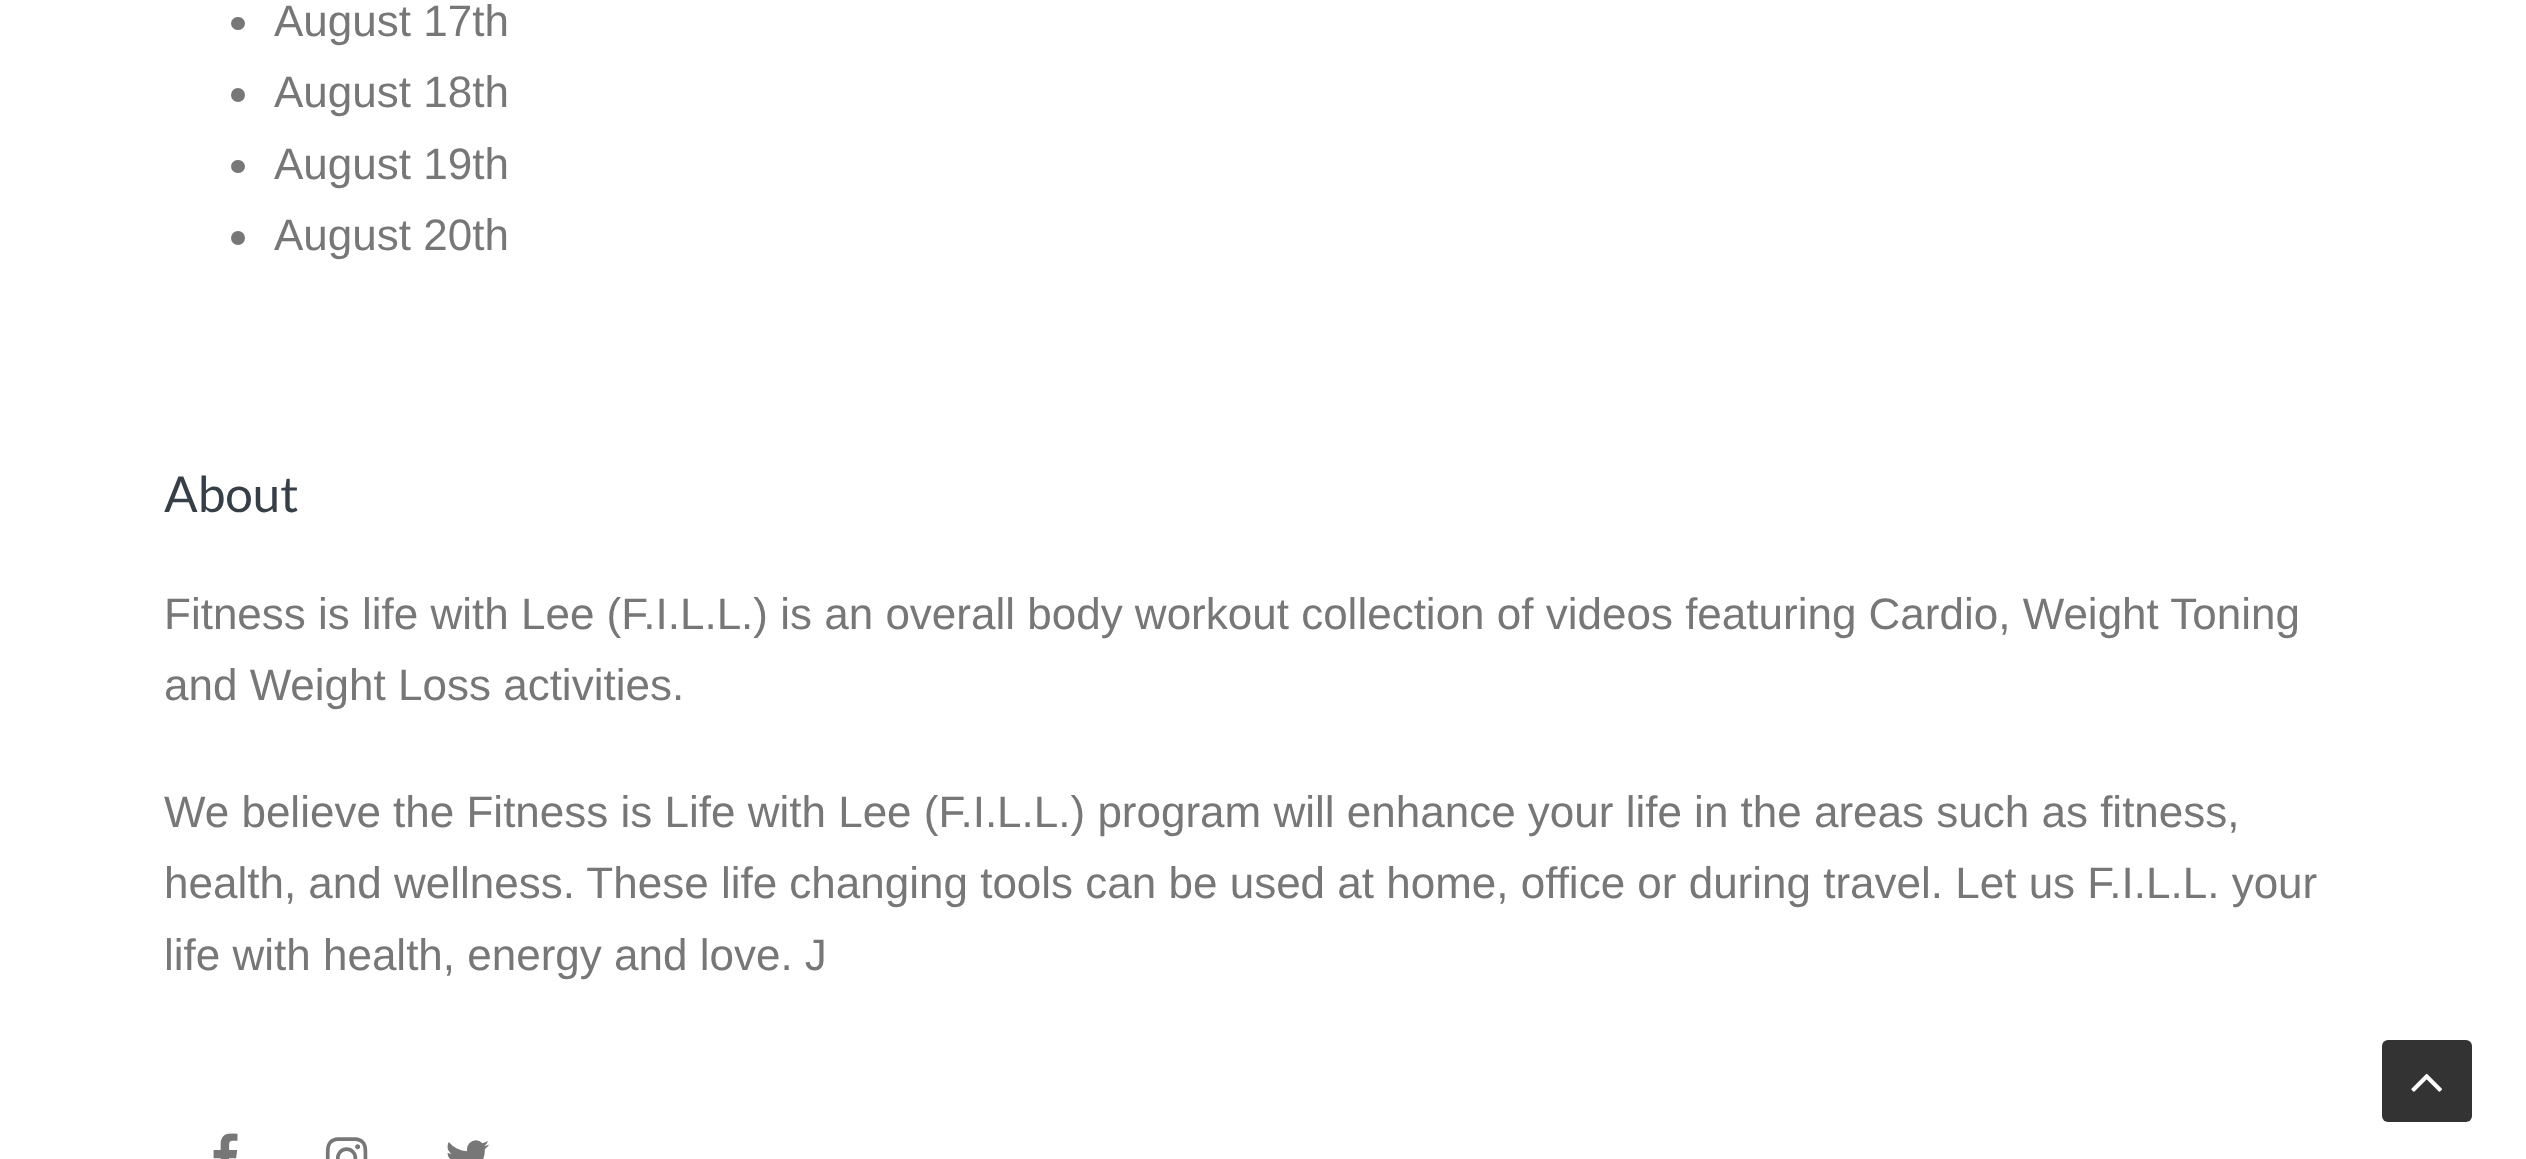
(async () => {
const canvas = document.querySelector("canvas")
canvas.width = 2526
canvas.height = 1159
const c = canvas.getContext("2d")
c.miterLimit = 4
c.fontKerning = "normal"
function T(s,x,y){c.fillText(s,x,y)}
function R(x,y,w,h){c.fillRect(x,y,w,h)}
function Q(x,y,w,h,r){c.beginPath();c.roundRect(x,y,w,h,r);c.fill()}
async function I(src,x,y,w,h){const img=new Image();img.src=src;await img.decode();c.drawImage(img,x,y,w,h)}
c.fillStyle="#fff"
R(0,0,2526,1159)
c.fillStyle="#777"
Q(231,17,14,13,6.5)
c.font="44px Liberation Sans"
T("August 17th",274,36)
c.beginPath()
c.arc(238,95,7,0,7)
c.fill()
T("August 18th",274,107)
Q(231,160,14,13,6.5)
T("August 19th",274,179)
c.beginPath()
c.arc(238,238,7,0,7)
c.fill()
T("August 20th",274,250)
c.font="49.5px Lato"
c.fillStyle="#363f48"
T("About",164,512)
c.font="44px Liberation Sans"
c.fillStyle="#777"
T("Fitness is life with Lee (F.I.L.L.) is an overall body workout collection of videos featuring Cardio, Weight Toning",164,629)
T("and Weight Loss activities.",164,700)
T("We believe the Fitness is Life with Lee (F.I.L.L.) program will enhance your life in the areas such as fitness,",164,827)
T("health, and wellness. These life changing tools can be used at home, office or during travel. Let us F.I.L.L. your",164,898)
T("life with health, energy and love. J",164,970)
await I("1.png",213,1133,25,26)
await I("2.png",325,1137,43,22)
await I("3.png",447,1140,42,19)
c.fillStyle="#333"
Q(2382,1040,90,82,6)
await I("4.png",2411,1073,31,19)
})()
